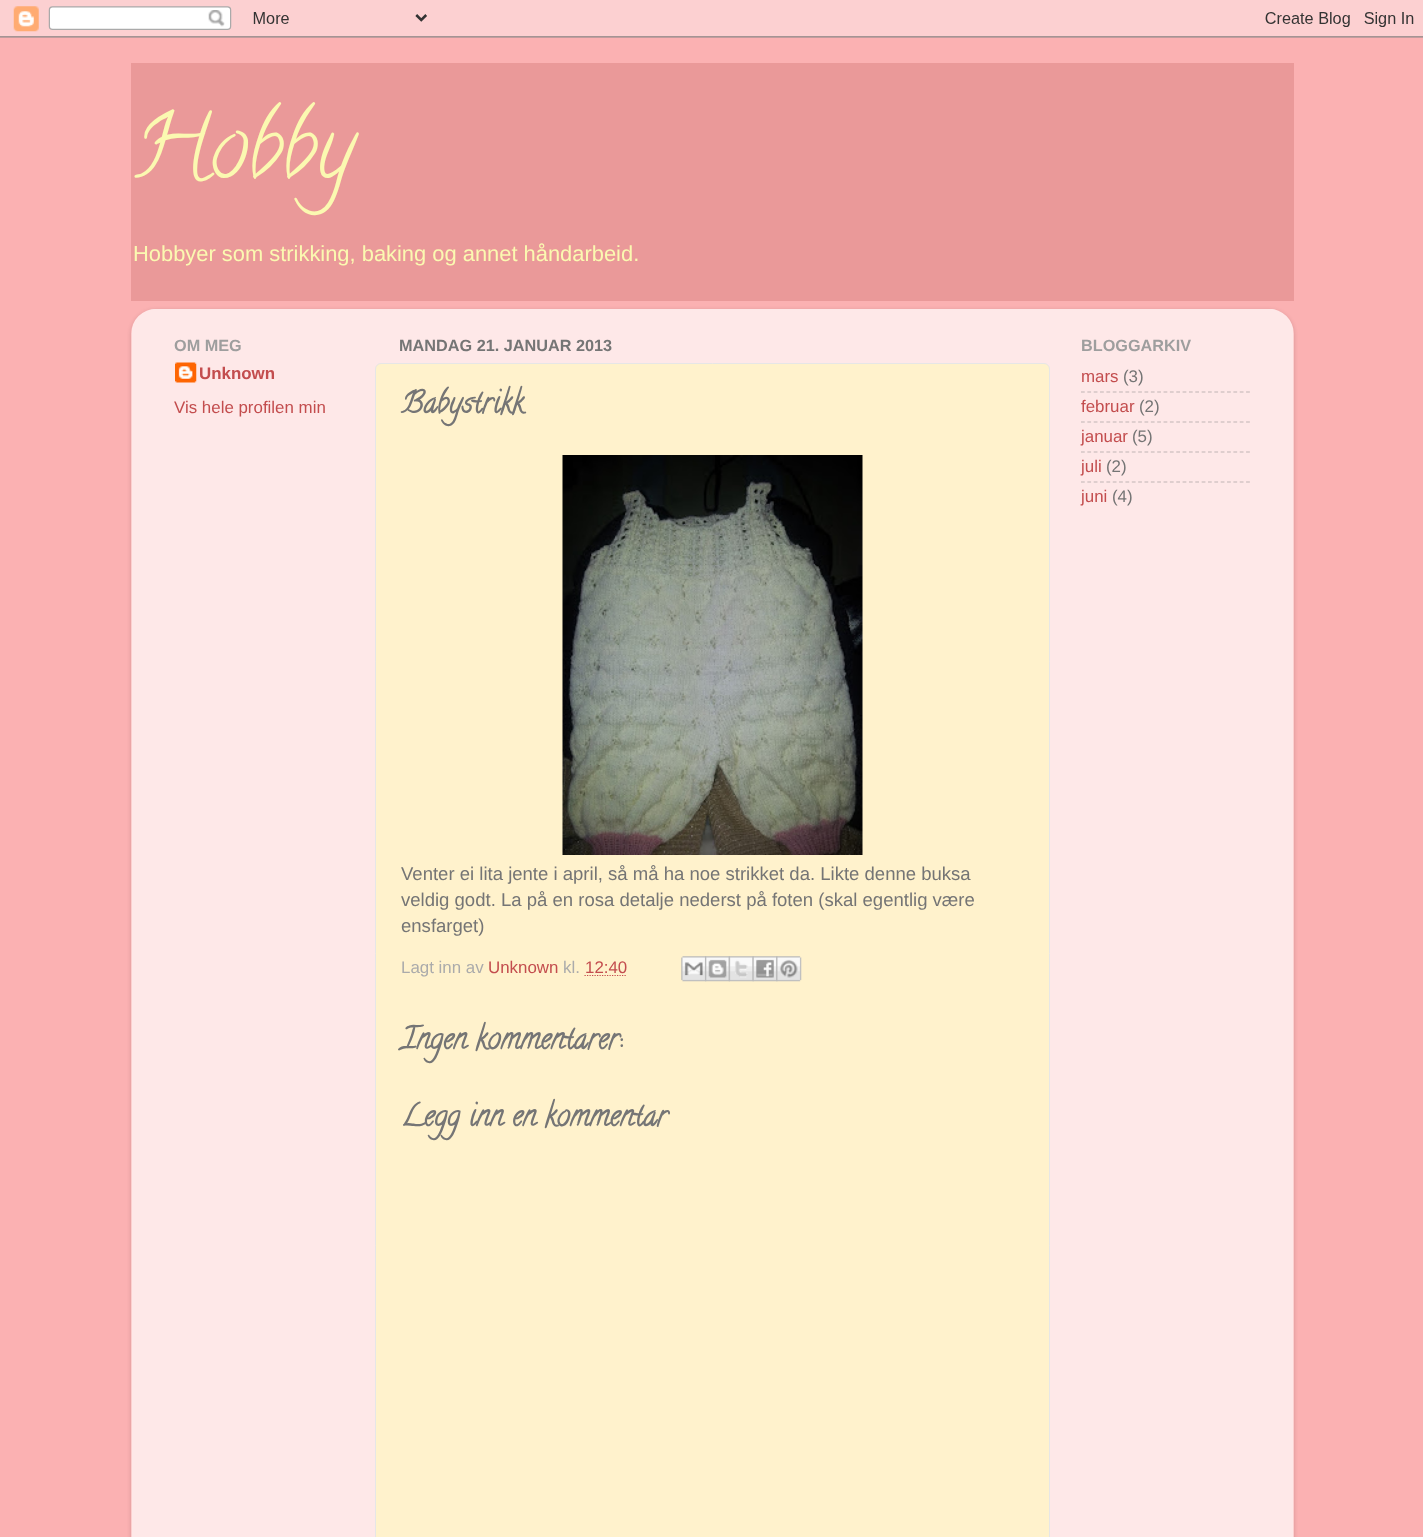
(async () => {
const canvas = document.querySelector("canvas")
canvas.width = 1423
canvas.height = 1537
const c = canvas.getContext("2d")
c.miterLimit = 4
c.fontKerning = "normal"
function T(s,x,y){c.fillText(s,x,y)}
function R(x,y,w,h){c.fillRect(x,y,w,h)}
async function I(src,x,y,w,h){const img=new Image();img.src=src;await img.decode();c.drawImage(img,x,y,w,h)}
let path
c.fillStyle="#fbb1b2"
R(0,0,1423,1537)
await I("1.png",0,0,1423,38)
c.fillStyle="#ea9999"
R(131,63,1163,238)
c.font="87.5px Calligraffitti"
c.fillStyle="#fbf9b1"
T("Hobby",131,174)
c.font="21.9px Liberation Sans"
T("Hobbyer som strikking, baking og annet håndarbeid.",133,261)
c.save()
path = new Path2D("M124 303h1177v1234h-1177zm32 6h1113c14 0 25 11 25 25v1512h-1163v-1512c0-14 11-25 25-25z")
c.clip(path,"evenodd")
c.fillStyle="#00000026"
c.filter="blur(2px)"
c.beginPath()
c.roundRect(131,310,1163,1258,25)
c.fill()
c.filter="none"
c.restore()
await I("2.png",131,309,1163,1228)
c.font="bold 16.25px Liberation Sans"
c.fillStyle="#9e9e9e"
T("OM MEG",174,351)
await I("3.png",175,362,22,21)
c.font="bold 16.9px Liberation Sans"
c.fillStyle="#c34d4e"
T("Unknown",199,379)
c.font="16.9px Liberation Sans"
T("Vis hele profilen min",174,413)
c.font="bold 16.25px Liberation Sans"
c.fillStyle="#757575"
T("MANDAG 21. JANUAR 2013",399,351)
c.fillStyle="#fff2cc"
c.beginPath()
c.roundRect(375.5,363.5,674,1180,5.5)
c.fill()
c.strokeStyle="#e6e6e6"
c.stroke()
c.font="bold 30px Calligraffitti"
c.fillStyle="#757575"
T("Babystrikk",401,412)
await I("4.png",562,455,301,400)
c.font="18.55px Liberation Sans"
T("Venter ei lita jente i april, så må ha noe strikket da. Likte denne buksa",401,880)
T("veldig godt. La på en rosa detalje nederst på foten (skal egentlig være",401,906)
T("ensfarget)",401,932)
c.font="16.9px Liberation Sans"
c.fillStyle="#ababab"
T("Lagt inn av",401,973)
c.fillStyle="#c34d4e"
T("Unknown",488,973)
c.fillStyle="#ababab"
T("kl.",563,973)
c.fillStyle="#c34d4e"
T("12:40",585,973)
path = new Path2D("M584.5 975.5h42.5")
c.strokeStyle="#c34d4e"
c.lineWidth=1.2
c.setLineDash([1.25,1.25])
c.stroke(path)
await I("5.png",681,956,26,26)
await I("6.png",705,956,25,26)
await I("7.png",728,956,26,26)
await I("8.png",752,956,26,26)
await I("9.png",776,956,26,26)
c.font="bold 30px Calligraffitti"
c.fillStyle="#757575"
T("Ingen kommentarer:",401,1048)
T("Legg inn en kommentar",401,1125)
c.font="bold 16.25px Liberation Sans"
c.fillStyle="#9e9e9e"
T("BLOGGARKIV",1081,351)
c.font="16.9px Liberation Sans"
c.fillStyle="#c34d4e"
T("mars",1081,382)
c.fillStyle="#757575"
T("(3)",1123,382)
path = new Path2D("M1081 392h169")
c.strokeStyle="#bfb4b4"
c.setLineDash([3.75,2.6])
c.stroke(path)
c.fillStyle="#c34d4e"
T("februar",1081,412)
c.fillStyle="#757575"
T("(2)",1139,412)
path = new Path2D("M1081 422h169")
c.stroke(path)
c.fillStyle="#c34d4e"
T("januar",1081,442)
c.fillStyle="#757575"
T("(5)",1132,442)
path = new Path2D("M1081 452h169")
c.stroke(path)
c.fillStyle="#c34d4e"
T("juli",1081,472)
c.fillStyle="#757575"
T("(2)",1106,472)
path = new Path2D("M1081 482h169")
c.stroke(path)
c.fillStyle="#c34d4e"
T("juni",1081,502)
c.fillStyle="#757575"
T("(4)",1112,502)
})()
